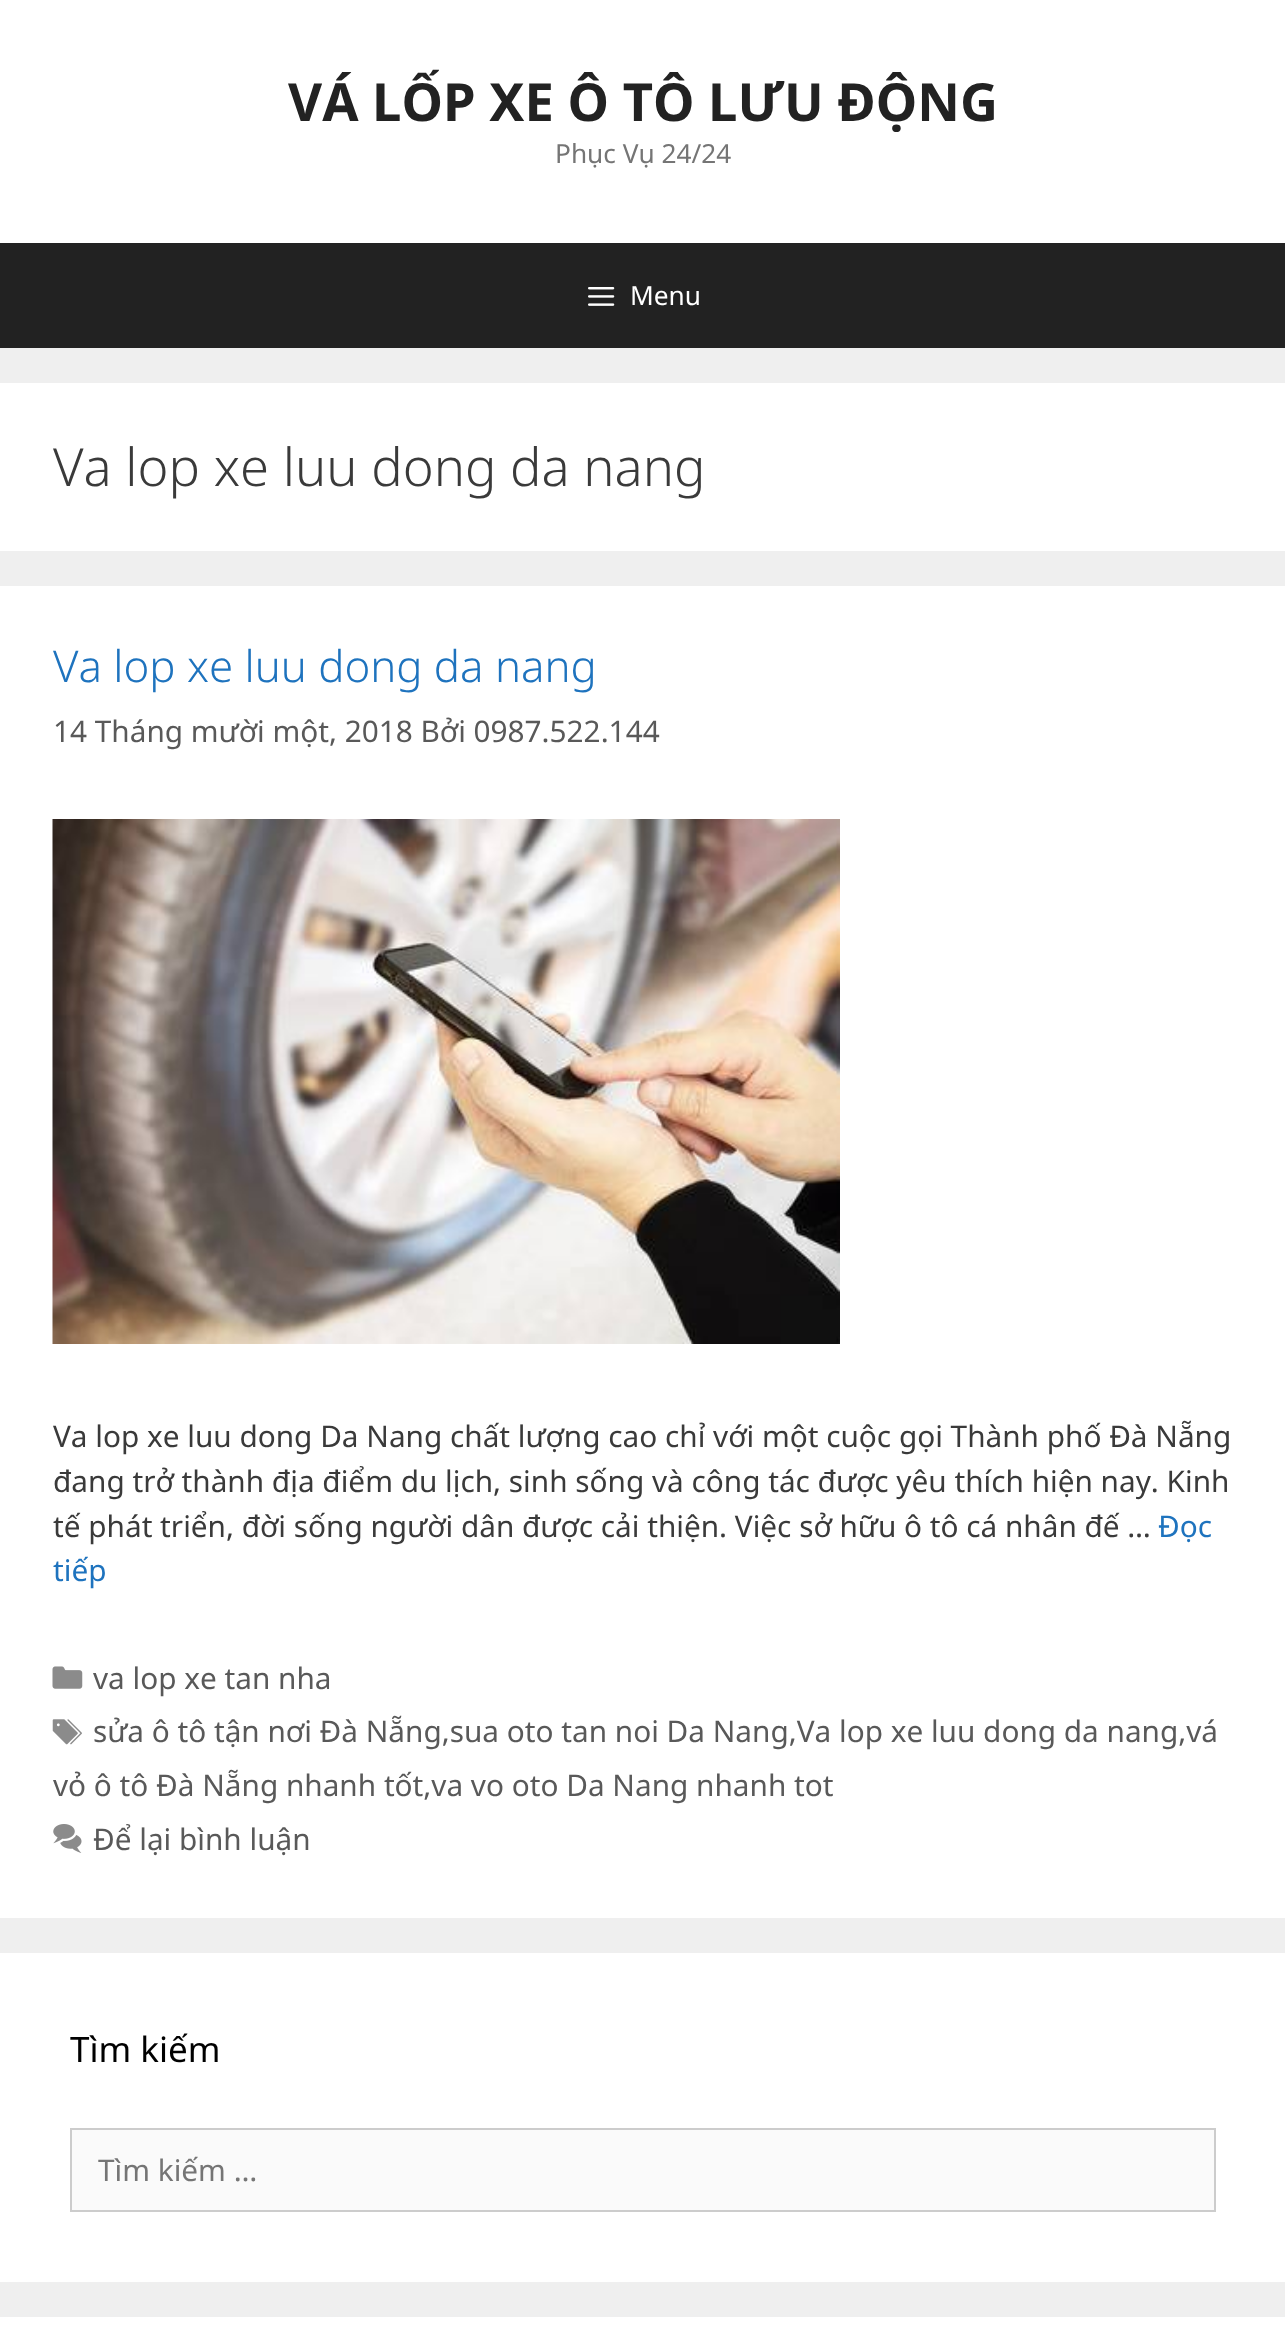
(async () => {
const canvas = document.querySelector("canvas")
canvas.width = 1285
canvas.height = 2351
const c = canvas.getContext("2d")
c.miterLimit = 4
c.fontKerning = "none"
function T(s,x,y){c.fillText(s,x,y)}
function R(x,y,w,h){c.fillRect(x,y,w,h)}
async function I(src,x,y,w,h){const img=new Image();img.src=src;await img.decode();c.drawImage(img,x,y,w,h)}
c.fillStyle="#efefef"
R(0,0,1285,2351)
c.fillStyle="#fff"
R(0,0,1285,243)
c.font="bold 52.5px Noto Sans"
c.fillStyle="#222"
T("VÁ LỐP XE Ô TÔ LƯU ĐỘNG",288,121)
c.font="26.25px Noto Sans"
c.fillStyle="#757575"
T("Phục Vụ 24/24",555,163)
c.fillStyle="#222"
R(0,243,1285,105)
await I("1.png",588,287,27,19)
c.fillStyle="#fff"
T("Menu",630,305)
R(0,383,1285,168)
c.font="300 52.5px Noto Sans"
c.fillStyle="#3a3a3a"
T("Va lop xe luu dong da nang",53,486)
c.fillStyle="#fff"
R(0,586,1285,1332)
c.font="300 43.75px Noto Sans"
c.fillStyle="#1e73be"
T("Va lop xe luu dong da nang",53,682)
c.font="29.75px Noto Sans"
c.fillStyle="#595959"
T("14 Tháng mười một, 2018 Bởi 0987.522.144",53,742)
await I("2.png",52,819,788,525)
c.fillStyle="#3a3a3a"
T("Va lop xe luu dong Da Nang chất lượng cao chỉ với một cuộc gọi Thành phố Đà Nẵng",53,1447)
T("đang trở thành địa điểm du lịch, sinh sống và công tác được yêu thích hiện nay. Kinh",53,1492)
T("tế phát triển, đời sống người dân được cải thiện. Việc sở hữu ô tô cá nhân đế …",53,1537)
c.fillStyle="#1e73be"
T("Đọc",1158,1537)
T("tiếp",53,1581)
await I("3.png",52,1666,31,23)
c.fillStyle="#595959"
T("va lop xe tan nha",93,1689)
await I("4.png",52,1719,30,26)
T("sửa ô tô tận nơi Đà Nẵng,sua oto tan noi Da Nang,Va lop xe luu dong da nang,vá",93,1742)
T("vỏ ô tô Đà Nẵng nhanh tốt,va vo oto Da Nang nhanh tot",53,1796)
await I("5.png",53,1824,29,29)
T("Để lại bình luận",93,1850)
c.fillStyle="#fff"
R(0,1953,1285,329)
c.font="35px Noto Sans"
c.fillStyle="#000"
T("Tìm kiếm",70,2062)
c.fillStyle="#fafafa"
c.beginPath()
c.rect(71,2129,1144,82)
c.fill()
c.strokeStyle="#ccc"
c.lineWidth=2
c.stroke()
c.font="29.75px Noto Sans"
c.fillStyle="#757575"
T("Tìm kiếm …",98,2181)
c.fillStyle="#fff"
R(0,2317,1285,34)
})()
